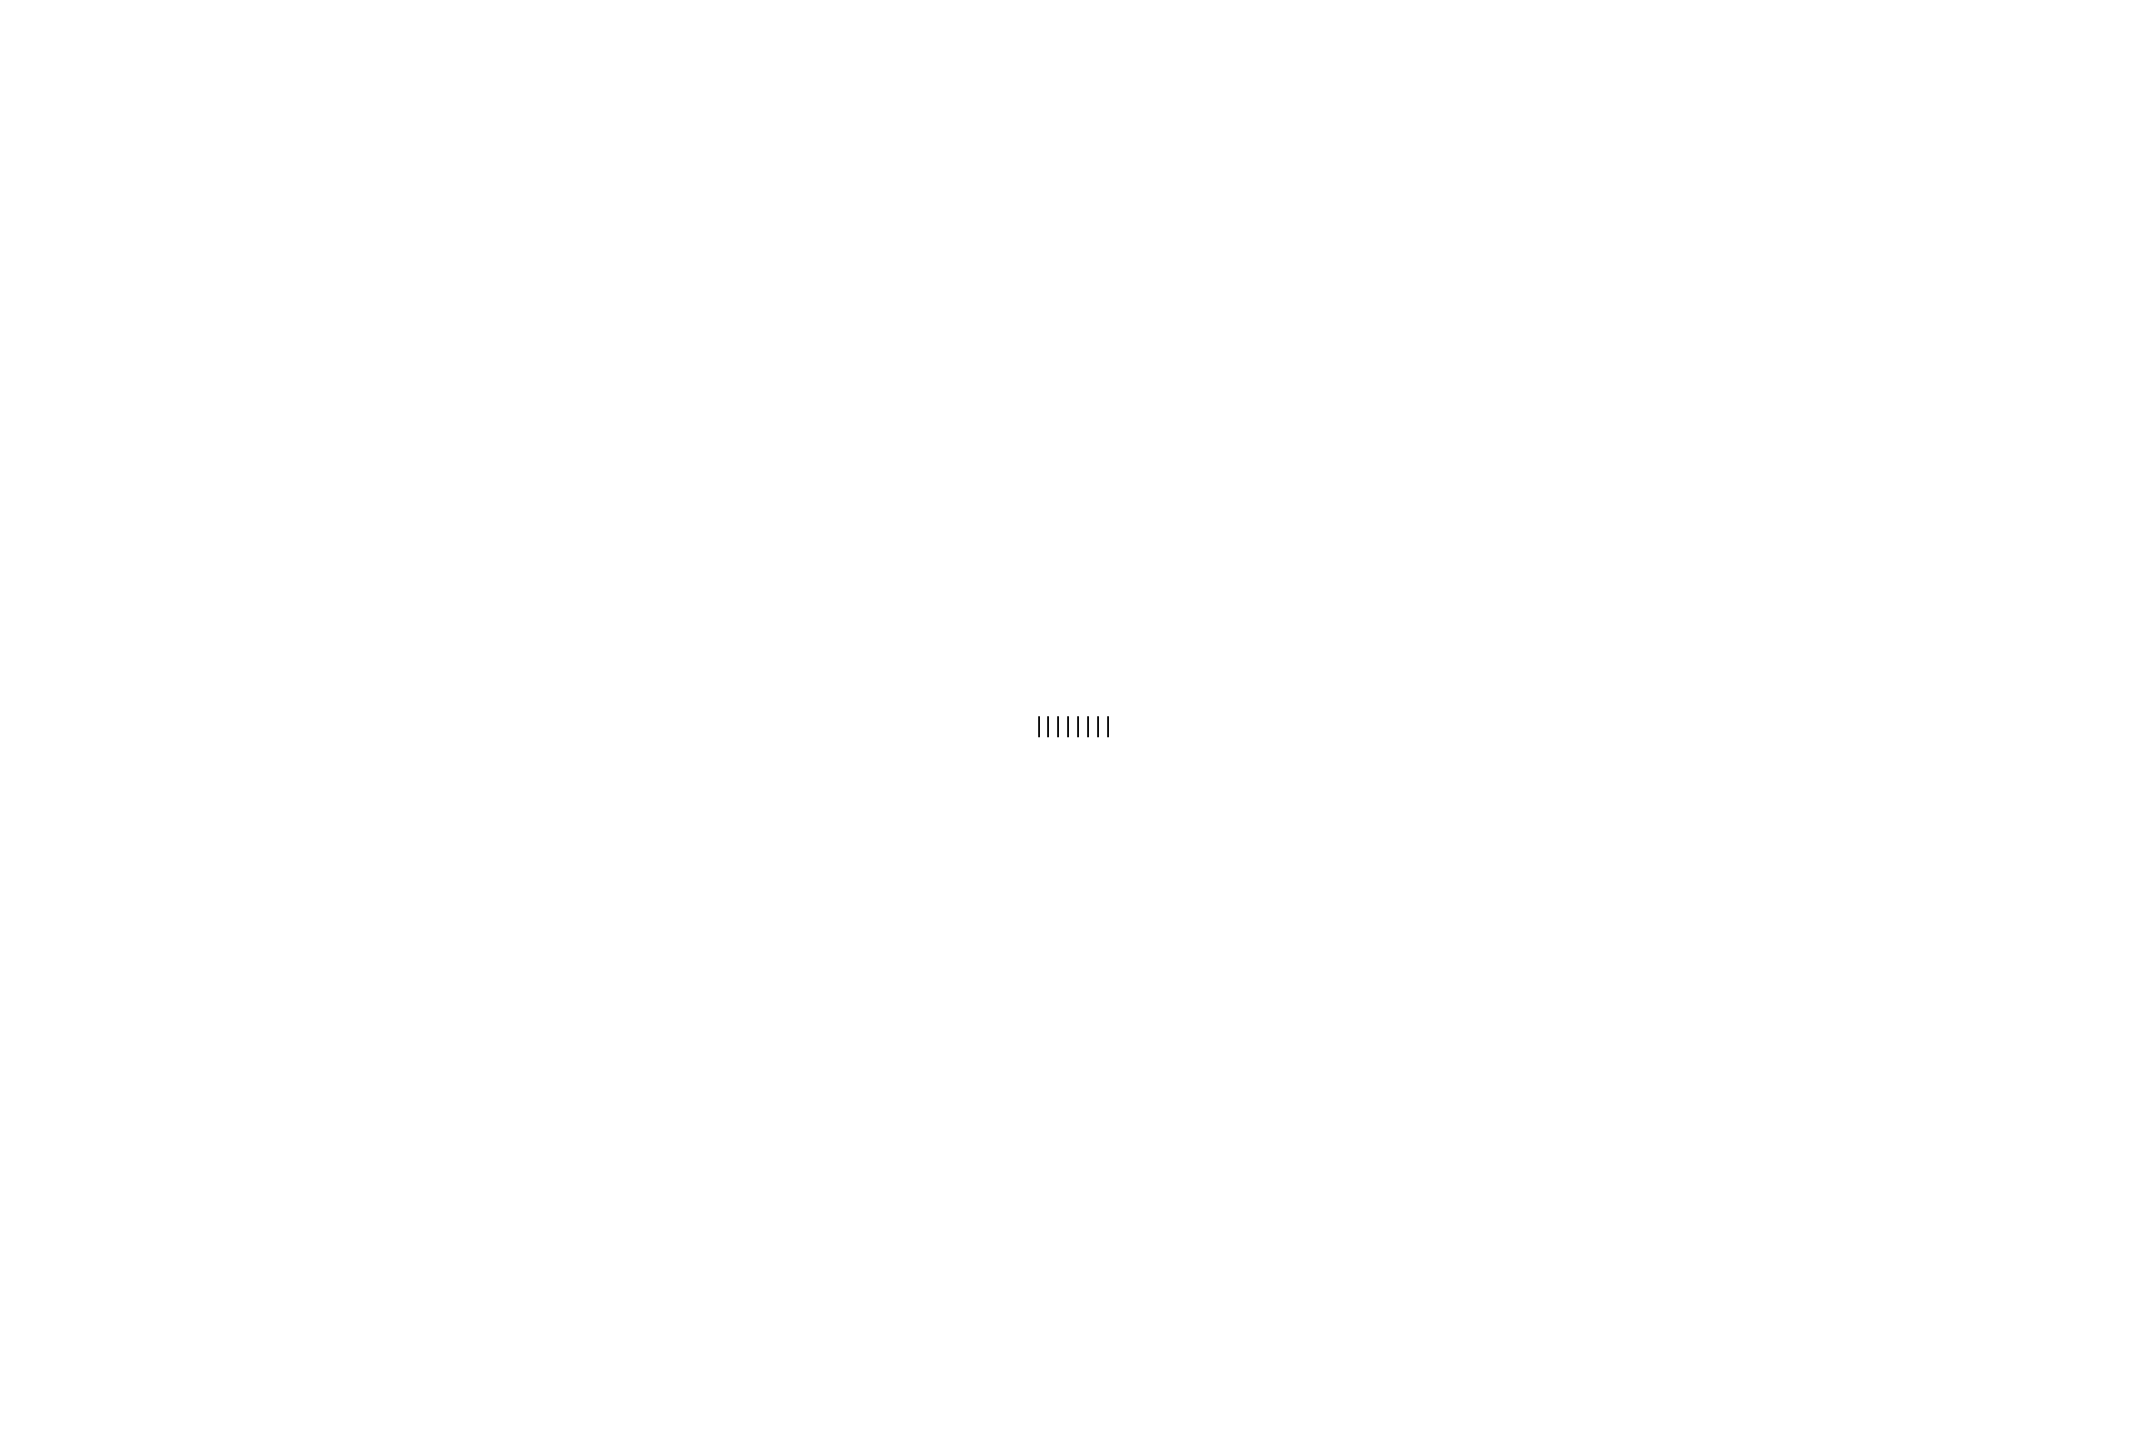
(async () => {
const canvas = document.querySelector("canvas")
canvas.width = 2146
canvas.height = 1450
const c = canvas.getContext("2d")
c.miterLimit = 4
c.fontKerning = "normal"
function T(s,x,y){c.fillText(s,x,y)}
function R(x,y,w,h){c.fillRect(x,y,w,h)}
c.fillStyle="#fff"
R(0,0,2146,1450)
c.font="25px Roboto"
c.fillStyle="#000"
T("|",1036,734)
T("|",1045,734)
T("|",1055,734)
T("|",1065,734)
T("|",1075,734)
T("|",1085,734)
T("|",1095,734)
T("|",1105,734)
})()
